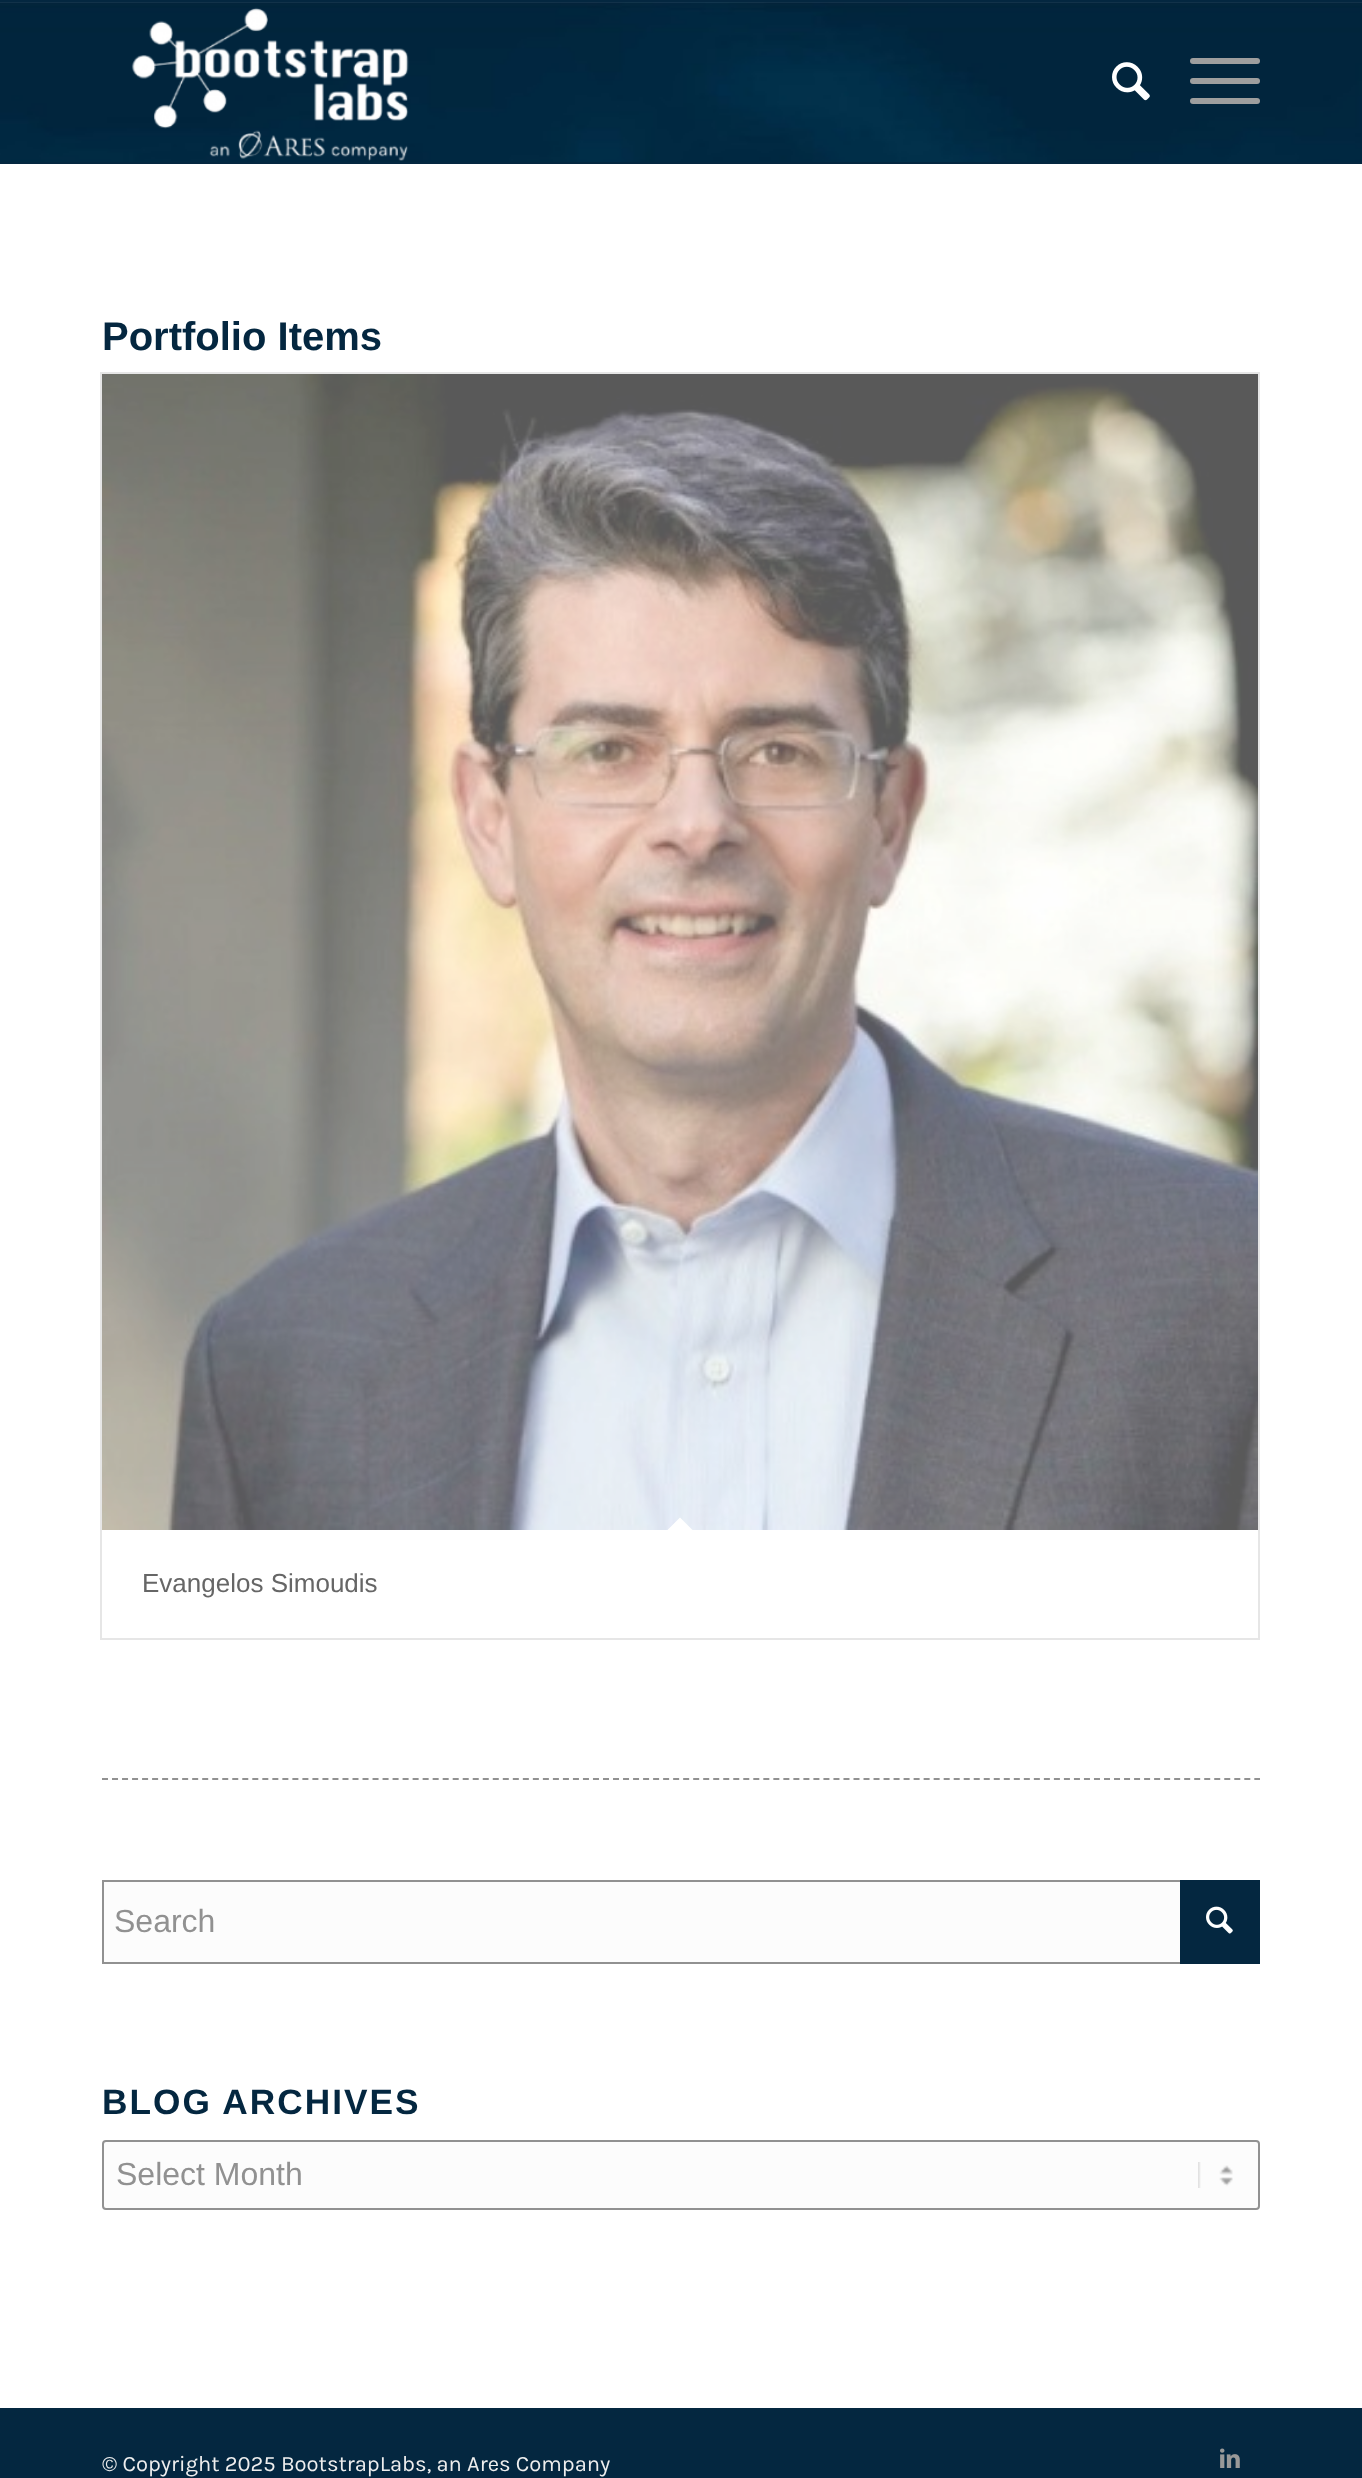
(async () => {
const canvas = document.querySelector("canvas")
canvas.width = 1362
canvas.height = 2478
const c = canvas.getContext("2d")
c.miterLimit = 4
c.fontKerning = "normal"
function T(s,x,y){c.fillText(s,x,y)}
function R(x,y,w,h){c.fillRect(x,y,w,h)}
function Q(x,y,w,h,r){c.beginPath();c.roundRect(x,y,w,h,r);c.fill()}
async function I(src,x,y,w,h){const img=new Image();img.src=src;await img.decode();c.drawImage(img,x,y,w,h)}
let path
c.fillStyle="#042740"
R(0,0,1362,2478)
await I("1.png",0,2,1362,160)
await I("2.png",131,7,278,154)
await I("3.png",1112,62,38,39)
c.fillStyle="#9e9e9e"
Q(1190,78,70,6,3)
Q(1190,58,70,6,3)
Q(1190,98,70,6,3)
c.fillStyle="#fff"
R(0,164,1362,2244)
c.font="bold 40px Liberation Sans"
c.fillStyle="#042740"
T("Portfolio Items",102,350)
c.strokeStyle="#e6e6e6"
c.lineWidth=2
c.strokeRect(101,373,1158,1266)
await I("4.png",102,374,1156,1156)
c.fillStyle="#fff"
path = new Path2D("M680 1517.5l14 14l-14 14.5l-14-14.5z")
c.fill(path)
c.font="26px Liberation Sans"
c.fillStyle="#666"
T("Evangelos Simoudis",142,1592)
path = new Path2D("M102 1779h1158")
c.strokeStyle="#919191"
c.setLineDash([6,4.02])
c.stroke(path)
c.fillStyle="#fcfcfc"
R(104,1882,1076,80)
c.setLineDash([])
c.strokeRect(103,1881,1156,82)
c.font="32px Liberation Sans"
c.fillStyle="#919191"
T("Search",114,1932)
c.fillStyle="#042740"
R(1180,1880,80,84)
await I("5.png",1206,1906,27,28)
c.letterSpacing="2px"
c.font="bold 35.25px Liberation Sans"
T("BLOG ARCHIVES",102,2114)
c.fillStyle="#fcfcfc"
Q(102,2140,1158,70,4)
await I("6.png",1198,2162,35,26)
c.beginPath()
c.roundRect(103,2141,1156,68,3)
c.stroke()
c.letterSpacing="0px"
c.font="32px Liberation Sans"
c.fillStyle="#919191"
T("Select Month",116,2185)
c.font="22px Karla"
c.fillStyle="#eee"
T("© Copyright 2025 BootstrapLabs, an Ares Company",102,2471)
await I("7.png",1220,2448,20,20)
})()
